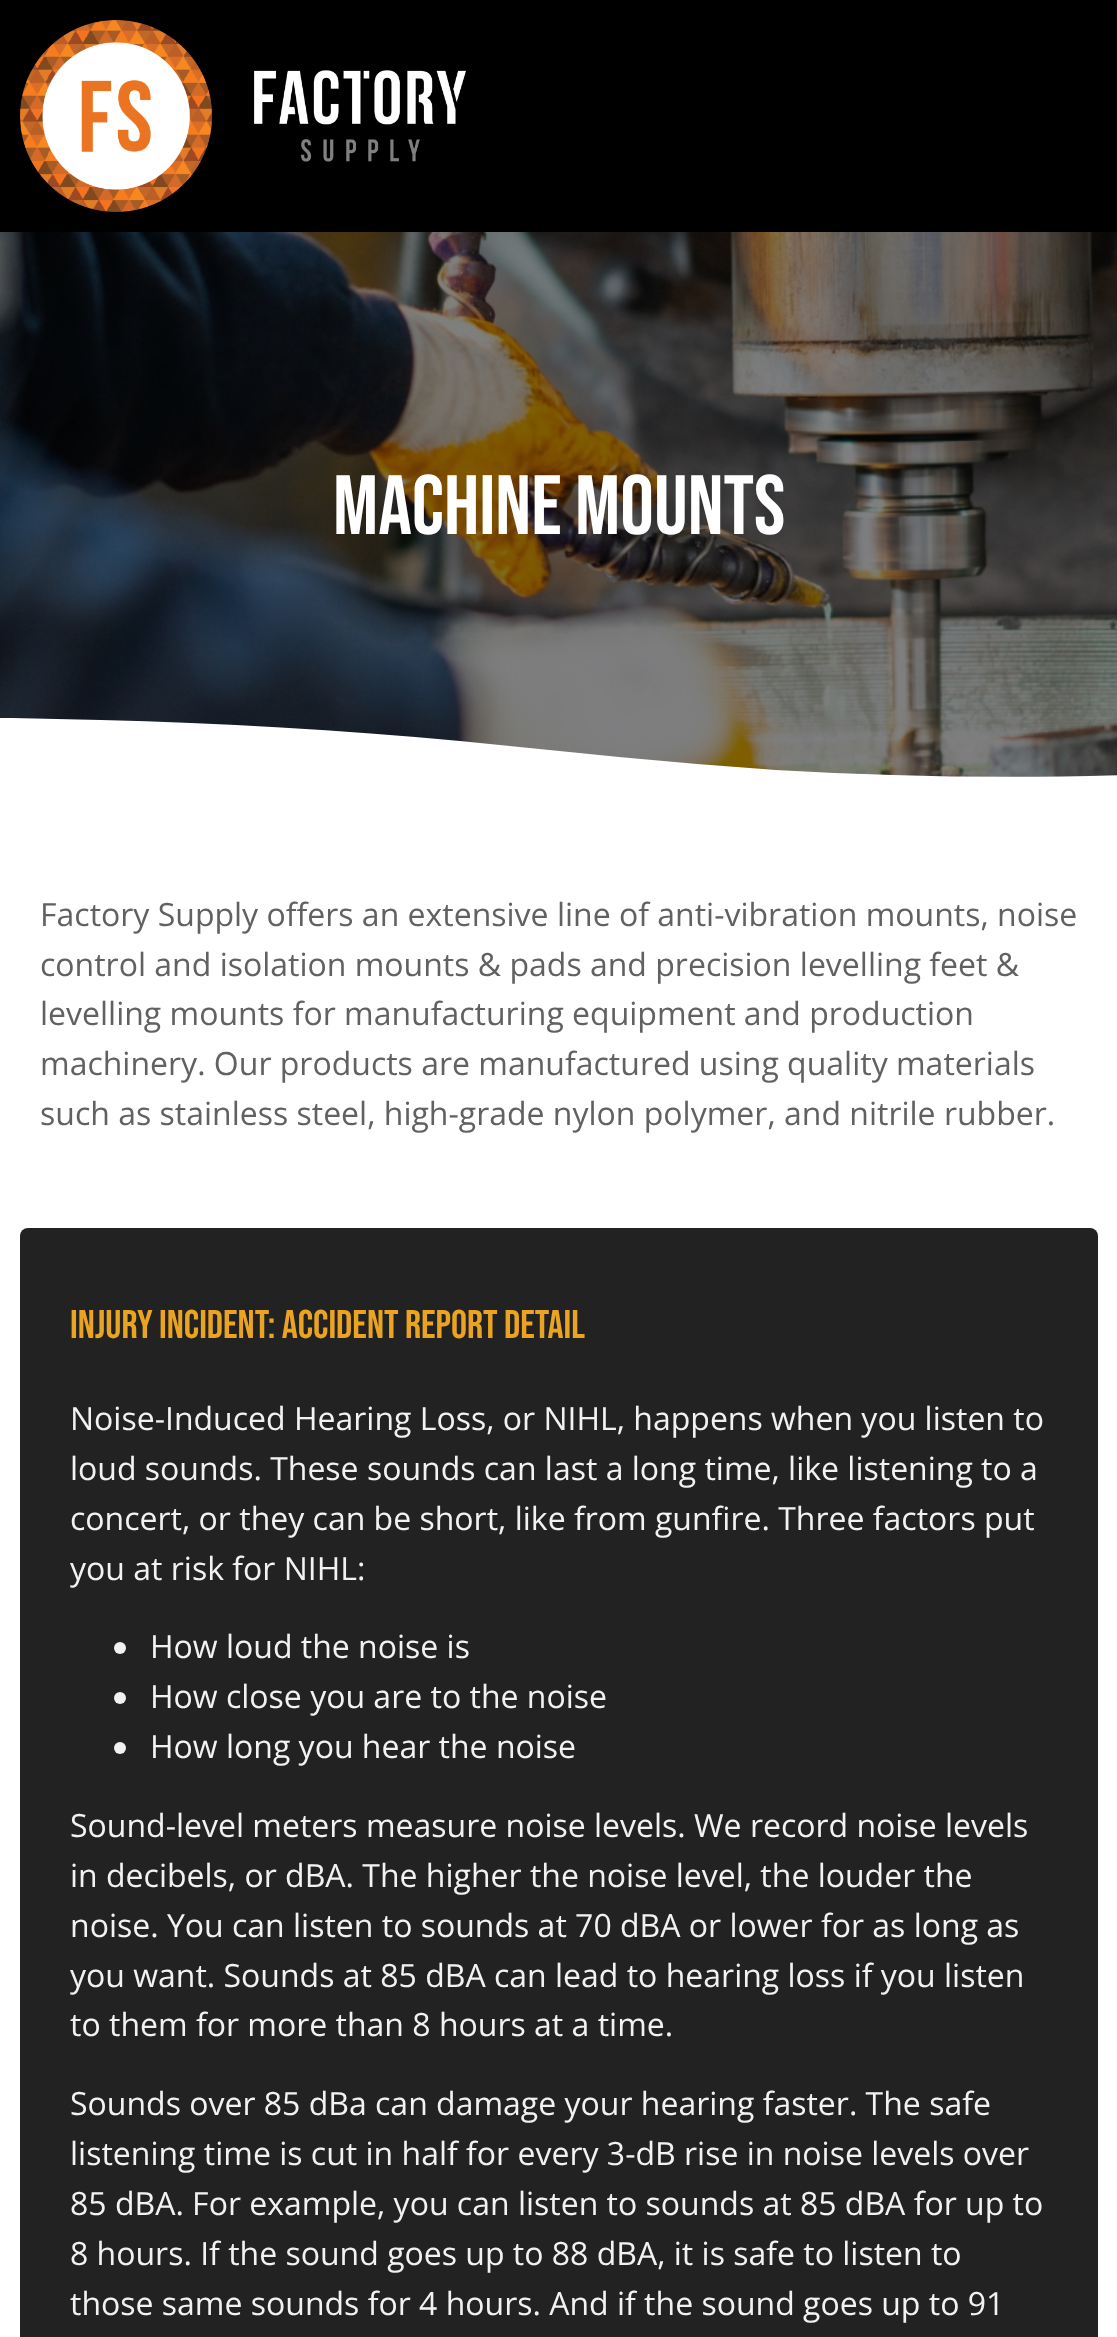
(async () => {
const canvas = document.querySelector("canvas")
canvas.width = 1117
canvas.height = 2337
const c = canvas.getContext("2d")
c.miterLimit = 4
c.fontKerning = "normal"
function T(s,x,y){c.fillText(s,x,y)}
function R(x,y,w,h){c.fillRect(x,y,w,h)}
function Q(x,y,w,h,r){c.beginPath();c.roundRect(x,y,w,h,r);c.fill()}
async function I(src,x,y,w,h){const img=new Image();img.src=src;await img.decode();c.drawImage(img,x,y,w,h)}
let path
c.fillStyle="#fff"
R(0,0,1117,2337)
c.fillStyle="#000"
R(0,0,1117,232)
await I("1.png",20,20,446,192)
await I("2.png",0,232,1117,545)
c.font="84px Bebas Neue"
c.fillStyle="#fff"
T("Machine Mounts",333,534)
path = new Path2D("M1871 850h-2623v-80c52-4 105-8 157-13c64-6 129-13 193-19c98-8 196-14 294-18c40-1 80-2 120-2l89 2c120 3 240 10 359 21l159 16c52 5 104 9 157 13c246 14 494 8 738-32c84-13 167-30 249-53c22-6 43-12 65-19l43-16z")
c.fill(path)
c.font="32px Open Sans"
c.fillStyle="#616161"
T("Factory Supply offers an extensive line of anti-vibration mounts, noise",40,926)
T("control and isolation mounts & pads and precision levelling feet &",40,976)
T("levelling mounts for manufacturing equipment and production",40,1025)
T("machinery. Our products are manufactured using quality materials",40,1075)
T("such as stainless steel, high-grade nylon polymer, and nitrile rubber.",40,1125)
c.fillStyle="#222"
Q(20,1228,1078,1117,8)
c.font="40px Bebas Neue"
c.fillStyle="#eaa421"
T("Injury incident: Accident Report Detail",70,1338)
c.font="32px Open Sans"
c.fillStyle="#f2f2f2"
T("Noise-Induced Hearing Loss, or NIHL, happens when you listen to",70,1430)
T("loud sounds. These sounds can last a long time, like listening to a",70,1480)
T("concert, or they can be short, like from gunfire. Three factors put",70,1530)
T("you at risk for NIHL:",70,1580)
c.beginPath()
c.arc(120,1648,6,0,7)
c.fill()
T("How loud the noise is",150,1658)
c.beginPath()
c.arc(120,1698,6,0,7)
c.fill()
T("How close you are to the noise",150,1708)
c.beginPath()
c.arc(120,1748,6,0,7)
c.fill()
T("How long you hear the noise",150,1758)
T("Sound-level meters measure noise levels. We record noise levels",70,1837)
T("in decibels, or dBA. The higher the noise level, the louder the",70,1887)
T("noise. You can listen to sounds at 70 dBA or lower for as long as",70,1937)
T("you want. Sounds at 85 dBA can lead to hearing loss if you listen",70,1987)
T("to them for more than 8 hours at a time.",70,2036)
T("Sounds over 85 dBa can damage your hearing faster. The safe",70,2115)
T("listening time is cut in half for every 3-dB rise in noise levels over",70,2165)
T("85 dBA. For example, you can listen to sounds at 85 dBA for up to",70,2215)
T("8 hours. If the sound goes up to 88 dBA, it is safe to listen to",70,2265)
T("those same sounds for 4 hours. And if the sound goes up to 91",70,2315)
})()
